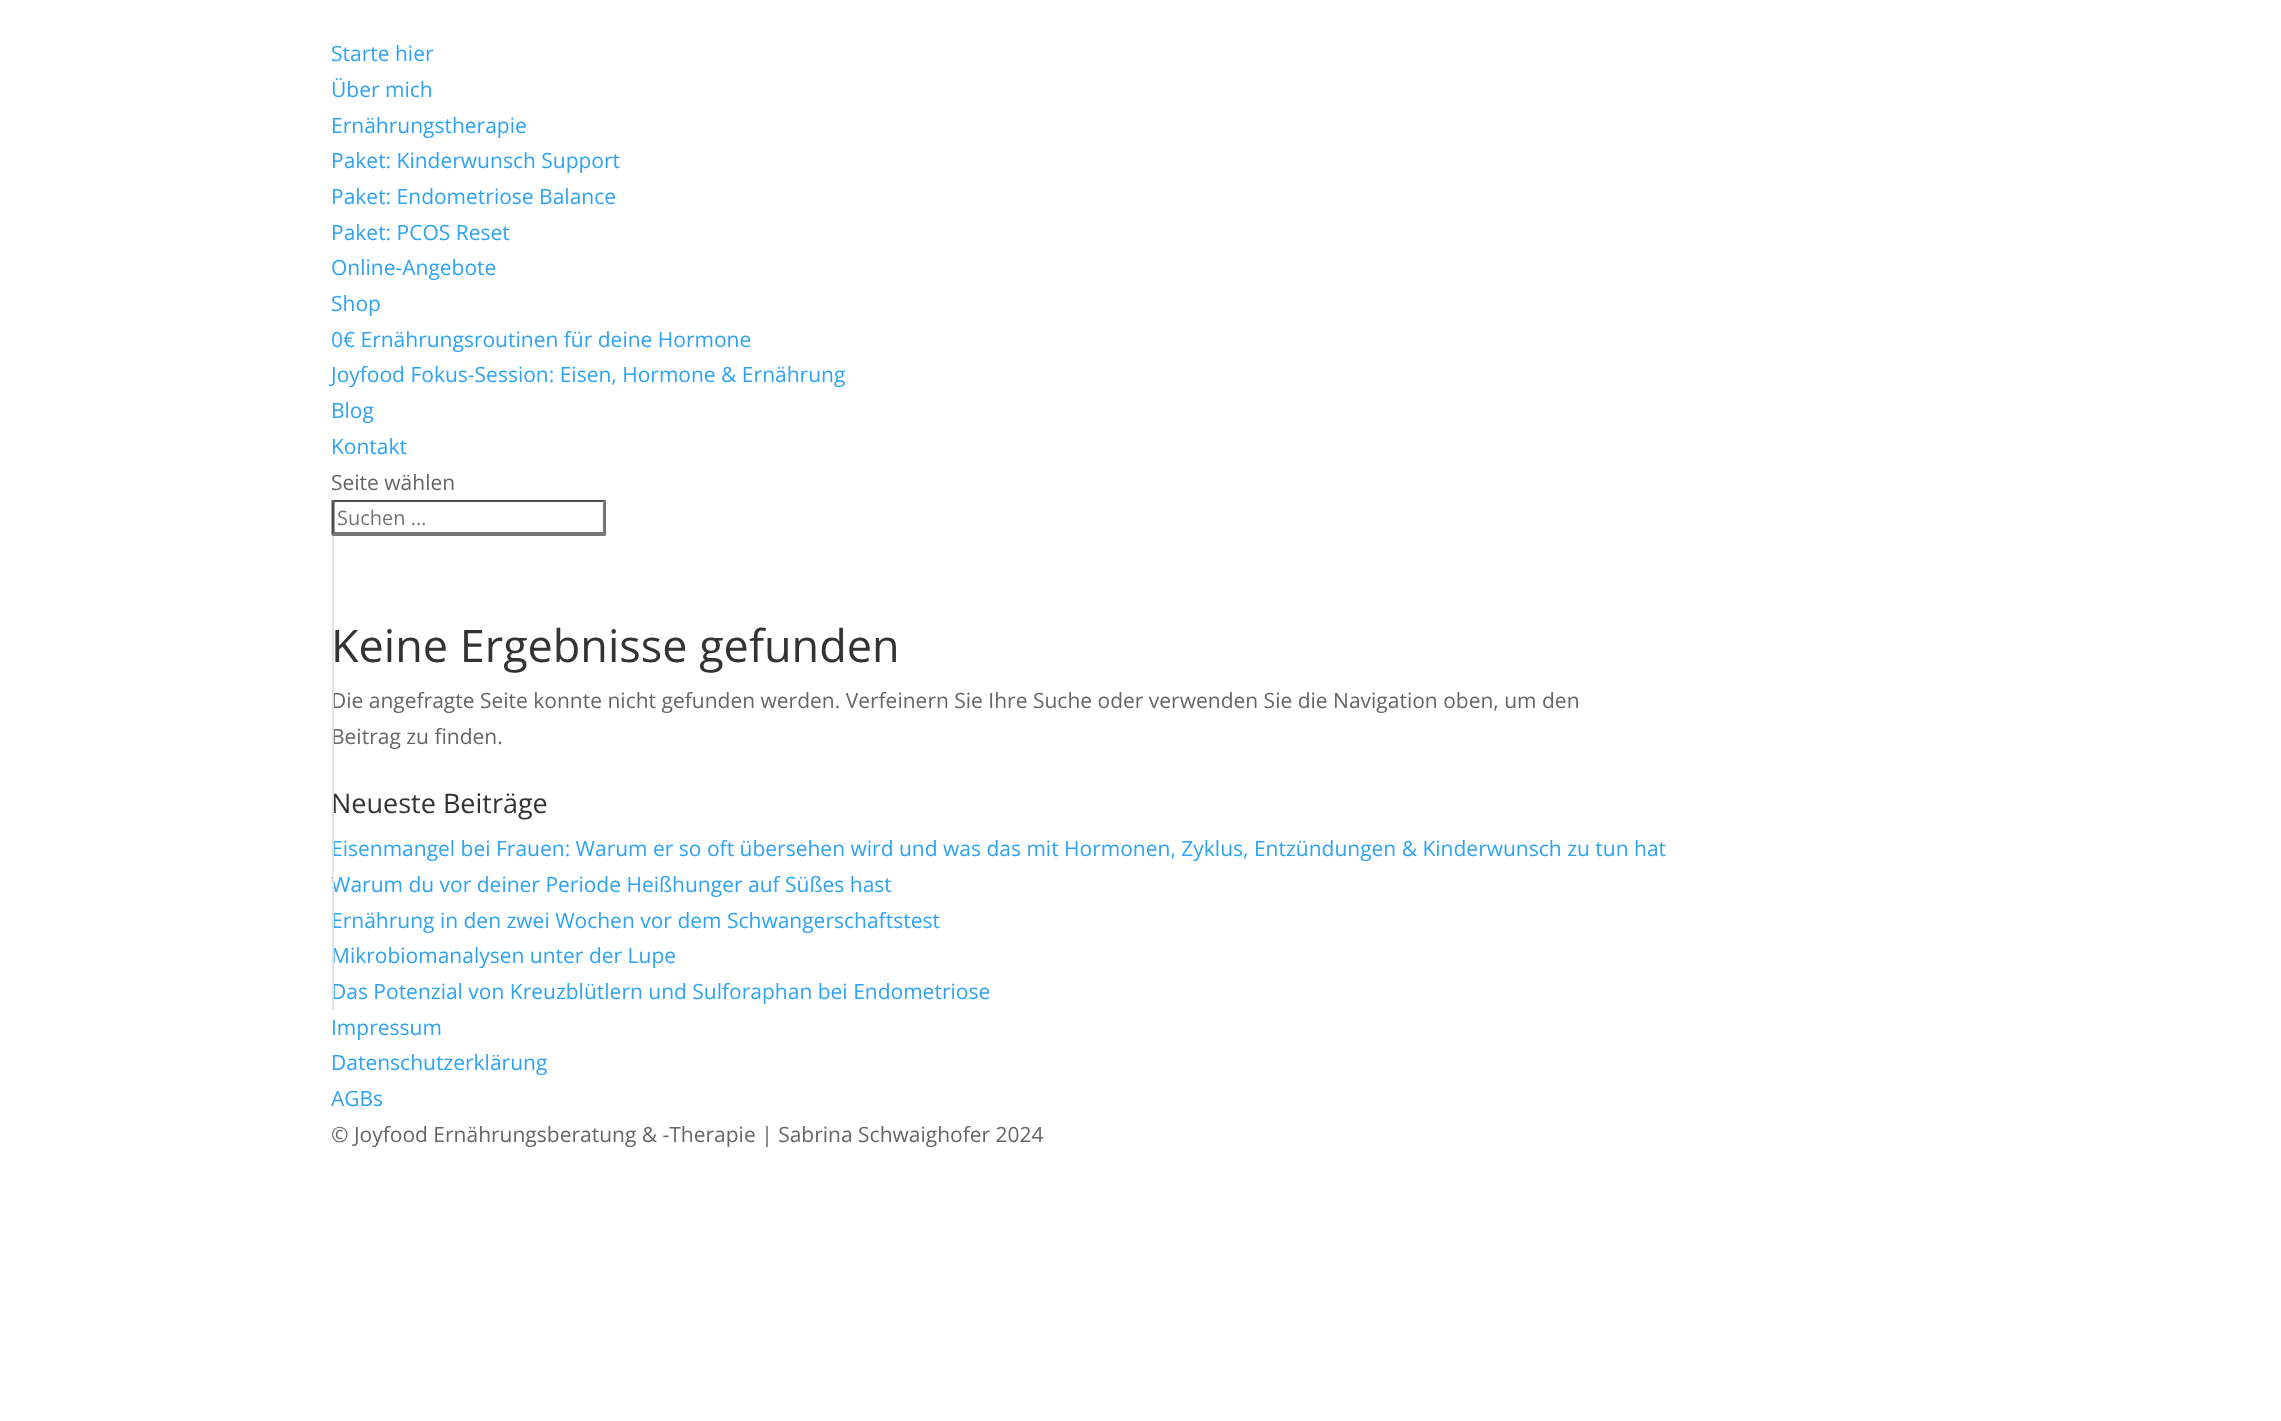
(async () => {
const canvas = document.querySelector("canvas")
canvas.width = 2281
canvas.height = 1421
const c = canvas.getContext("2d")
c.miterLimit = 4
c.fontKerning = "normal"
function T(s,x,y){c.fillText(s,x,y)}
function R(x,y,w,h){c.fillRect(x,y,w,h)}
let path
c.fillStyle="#fff"
R(0,0,2281,1421)
c.font="21px Open Sans"
c.fillStyle="#2ea3f2"
T("Starte hier",331,61)
T("Über mich",331,97)
T("Ernährungstherapie",331,133)
T("Paket: Kinderwunsch Support",331,168)
T("Paket: Endometriose Balance",331,204)
T("Paket: PCOS Reset",331,240)
T("Online-Angebote",331,275)
T("Shop",331,311)
T("0€ Ernährungsroutinen für deine Hormone",331,347)
T("Joyfood Fokus-Session: Eisen, Hormone & Ernährung",331,382)
T("Blog",331,418)
T("Kontakt",331,454)
c.fillStyle="#666"
T("Seite wählen",331,490)
c.fillStyle="#4f4f4f"
path = new Path2D("M332 500h274l-3 2h-269z")
c.fill(path)
c.fillStyle="#767676"
path = new Path2D("M606 499.5v36l-3-3v-30z")
c.fill(path)
path = new Path2D("M606 536h-274l2-4h269z")
c.fill(path)
c.fillStyle="#4f4f4f"
path = new Path2D("M331.5 535.5v-36l3 3v30z")
c.fill(path)
c.font="20px Open Sans"
c.fillStyle="#757575"
T("Suchen …",337,525)
c.font="21px Open Sans"
c.fillStyle="#666"
T("Die angefragte Seite konnte nicht gefunden werden. Verfeinern Sie Ihre Suche oder verwenden Sie die Navigation oben, um den",331,708)
T("Beitrag zu finden.",331,744)
c.font="27px Open Sans"
c.fillStyle="#333"
T("Neueste Beiträge",331,813)
c.font="21px Open Sans"
c.fillStyle="#2ea3f2"
T("Eisenmangel bei Frauen: Warum er so oft übersehen wird und was das mit Hormonen, Zyklus, Entzündungen & Kinderwunsch zu tun hat",331,856)
T("Warum du vor deiner Periode Heißhunger auf Süßes hast",331,892)
T("Ernährung in den zwei Wochen vor dem Schwangerschaftstest",331,928)
T("Mikrobiomanalysen unter der Lupe",331,963)
T("Das Potenzial von Kreuzblütlern und Sulforaphan bei Endometriose",331,999)
c.fillStyle="#e2e2e2"
R(332,536,2,474)
c.font="45px Open Sans"
c.fillStyle="#333"
T("Keine Ergebnisse gefunden",331,662)
c.font="21px Open Sans"
c.fillStyle="#2ea3f2"
T("Impressum",331,1035)
T("Datenschutzerklärung",331,1070)
T("AGBs",331,1106)
c.fillStyle="#666"
T("© Joyfood Ernährungsberatung & -Therapie | Sabrina Schwaighofer 2024",331,1142)
})()
